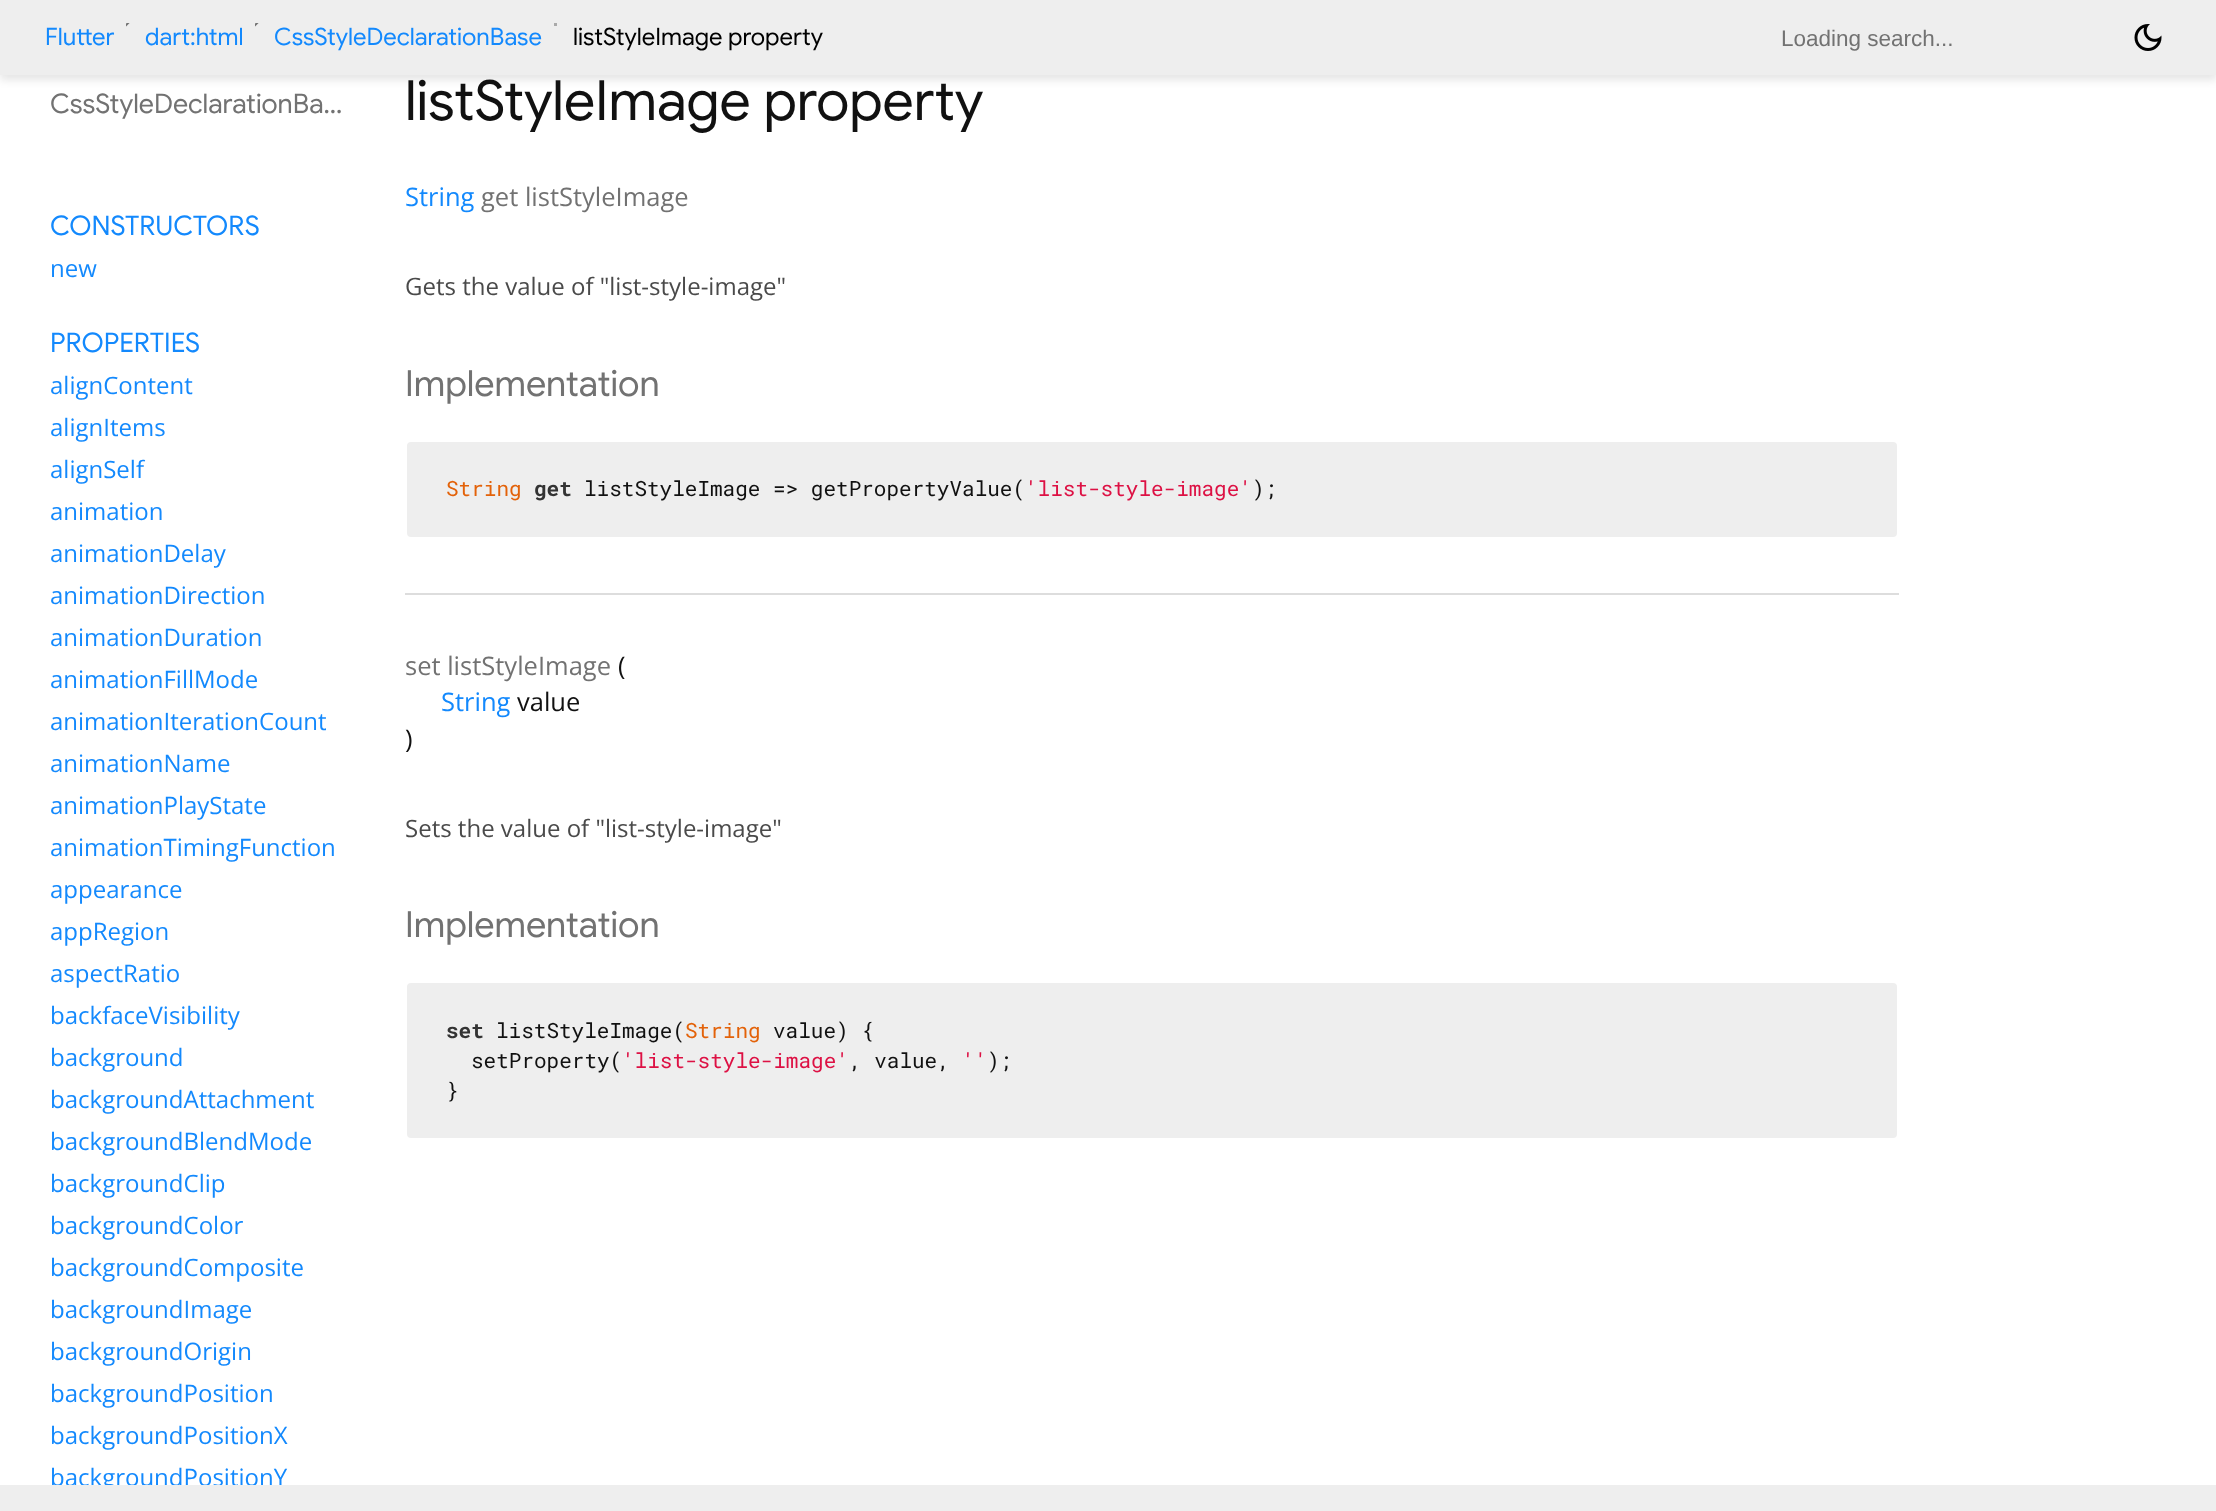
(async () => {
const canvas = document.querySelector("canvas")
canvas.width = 2216
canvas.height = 1511
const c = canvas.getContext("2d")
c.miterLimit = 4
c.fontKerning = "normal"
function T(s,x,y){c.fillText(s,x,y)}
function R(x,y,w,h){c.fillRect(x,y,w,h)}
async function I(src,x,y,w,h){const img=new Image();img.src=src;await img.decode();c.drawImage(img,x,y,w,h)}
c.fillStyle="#fff"
R(0,0,2216,1511)
c.fillStyle="#0000001a"
c.filter="blur(4px)"
c.beginPath()
c.rect(0,5,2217,75)
c.fill()
c.filter="none"
c.fillStyle="#eee"
R(0,0,2216,75)
c.font="24px Google Sans"
c.fillStyle="#1389fd"
T("Flutter",45,45)
await I("1.png",126,23,4,4)
T("dart:html",145,45)
await I("1.png",255,23,4,4)
T("CssStyleDeclarationBase",274,45)
c.fillStyle="#a9a9a9"
R(554,23,3,3)
c.fillStyle="#000"
T("listStyleImage property",573,45)
c.font="22.5px Liberation Sans"
c.fillStyle="#727272"
T("Loading search...",1781,46)
await I("2.png",2134,24,28,27)
c.font="27px Google Sans"
T("CssStyleDeclarationBa…",50,113)
c.fillStyle="#1389fd"
T("CONSTRUCTORS",50,235)
c.font="24px Open Sans"
T("new",50,277)
c.font="27px Google Sans"
T("PROPERTIES",50,352)
c.font="24px Open Sans"
T("alignContent",50,394)
T("alignItems",50,436)
T("alignSelf",50,478)
T("animation",50,520)
T("animationDelay",50,562)
T("animationDirection",50,604)
T("animationDuration",50,646)
T("animationFillMode",50,688)
T("animationIterationCount",50,730)
T("animationName",50,772)
T("animationPlayState",50,814)
T("animationTimingFunction",50,856)
T("appearance",50,898)
T("appRegion",50,940)
T("aspectRatio",50,982)
T("backfaceVisibility",50,1024)
T("background",50,1066)
T("backgroundAttachment",50,1108)
T("backgroundBlendMode",50,1150)
T("backgroundClip",50,1192)
T("backgroundColor",50,1234)
T("backgroundComposite",50,1276)
T("backgroundImage",50,1318)
T("backgroundOrigin",50,1360)
T("backgroundPosition",50,1402)
T("backgroundPositionX",50,1444)
c.save()
c.beginPath()
c.rect(45,1455,300,30)
c.clip()
T("backgroundPositionY",50,1486)
c.restore()
c.font="55.5px Google Sans"
c.fillStyle="#111"
T("listStyleImage property",405,120)
c.font="25.5px Open Sans"
c.fillStyle="#1389fd"
T("String",405,206)
c.fillStyle="#727272"
T("get listStyleImage",481,206)
c.font="24px Open Sans"
c.fillStyle="#4a4a4a"
T("Gets the value of \"list-style-image\"",405,295)
c.font="36px Google Sans"
c.fillStyle="#727272"
T("Implementation",405,396)
c.fillStyle="#eee"
c.beginPath()
c.roundRect(406,441,1492,97,5)
c.fill()
c.strokeStyle="#fff"
c.lineWidth=2
c.stroke()
c.font="21px Roboto Mono"
c.fillStyle="#e36209"
T("String",446,496)
c.font="bold 21px Roboto Mono"
c.fillStyle="#333"
T("get",534,496)
c.font="21px Roboto Mono"
c.fillStyle="#111"
T("listStyleImage => getPropertyValue(",584,496)
c.fillStyle="#d14"
T("'list-style-image'",1025,496)
c.fillStyle="#111"
T(");",1252,496)
c.fillStyle="#ddd"
R(405,593,1494,2)
c.font="25.5px Open Sans"
c.fillStyle="#727272"
T("set listStyleImage",405,675)
c.fillStyle="#111"
T("(",618,675)
c.fillStyle="#1389fd"
T("String",441,711)
c.fillStyle="#111"
T("value",517,711)
T(")",405,748)
c.font="24px Open Sans"
c.fillStyle="#4a4a4a"
T("Sets the value of \"list-style-image\"",405,837)
c.font="36px Google Sans"
c.fillStyle="#727272"
T("Implementation",405,937)
c.fillStyle="#eee"
c.beginPath()
c.roundRect(406,982,1492,157,5)
c.fill()
c.stroke()
c.font="bold 21px Roboto Mono"
c.fillStyle="#333"
T("set",446,1038)
c.font="21px Roboto Mono"
c.fillStyle="#111"
T("listStyleImage(",496,1038)
c.fillStyle="#e36209"
T("String",685,1038)
c.fillStyle="#111"
T("value) {",773,1038)
T("setProperty(",471,1068)
c.fillStyle="#d14"
T("'list-style-image'",622,1068)
c.fillStyle="#111"
T(", value,",849,1068)
c.fillStyle="#d14"
T("''",962,1068)
c.fillStyle="#111"
T(");",987,1068)
T("}",446,1098)
c.fillStyle="#eee"
R(0,1485,2216,26)
})()
